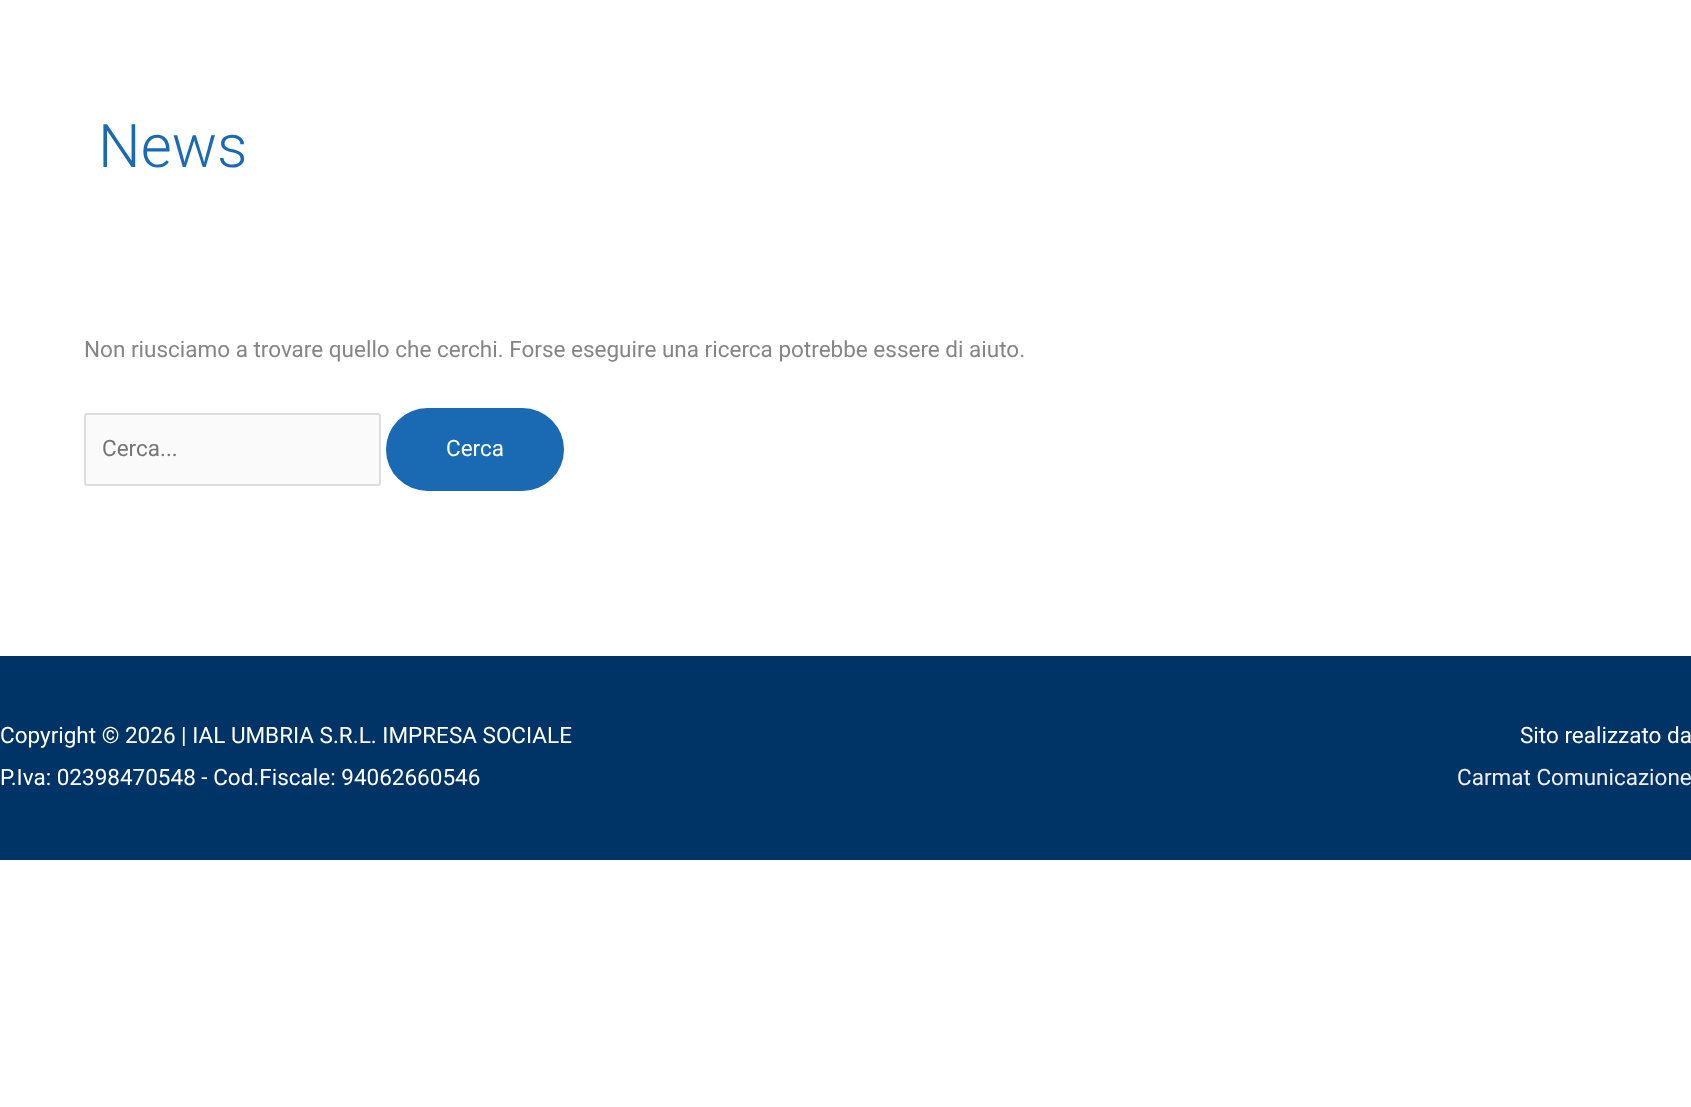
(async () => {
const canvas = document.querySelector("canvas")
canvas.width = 1691
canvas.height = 1107
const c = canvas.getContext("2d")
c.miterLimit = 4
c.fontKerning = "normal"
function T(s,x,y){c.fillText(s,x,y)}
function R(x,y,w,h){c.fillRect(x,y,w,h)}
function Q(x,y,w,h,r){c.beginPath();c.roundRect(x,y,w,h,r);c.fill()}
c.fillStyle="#fff"
R(0,0,1691,1107)
c.font="300 60px Roboto"
c.fillStyle="#196ab2"
T("News",98,167)
c.font="22.5px Roboto"
c.fillStyle="#858585"
T("Non riusciamo a trovare quello che cerchi. Forse eseguire una ricerca potrebbe essere di aiuto.",84,357)
c.fillStyle="#fafafa"
c.beginPath()
c.roundRect(85,414,295,71,2)
c.fill()
c.strokeStyle="#ddd"
c.lineWidth=2
c.stroke()
c.fillStyle="#757575"
T("Cerca...",102,456)
c.fillStyle="#196ab2"
Q(386,408,178,83,41.5)
c.fillStyle="#fff"
T("Cerca",446,456)
c.fillStyle="#036"
R(0,656,1691,204)
c.fillStyle="#fff"
T("Copyright © 2026 | IAL UMBRIA S.R.L. IMPRESA SOCIALE",0,743)
T("P.Iva: 02398470548 - Cod.Fiscale: 94062660546",0,785)
T("Sito realizzato da",1520,743)
c.fillStyle="#efefef"
T("Carmat Comunicazione",1457,785)
})()
